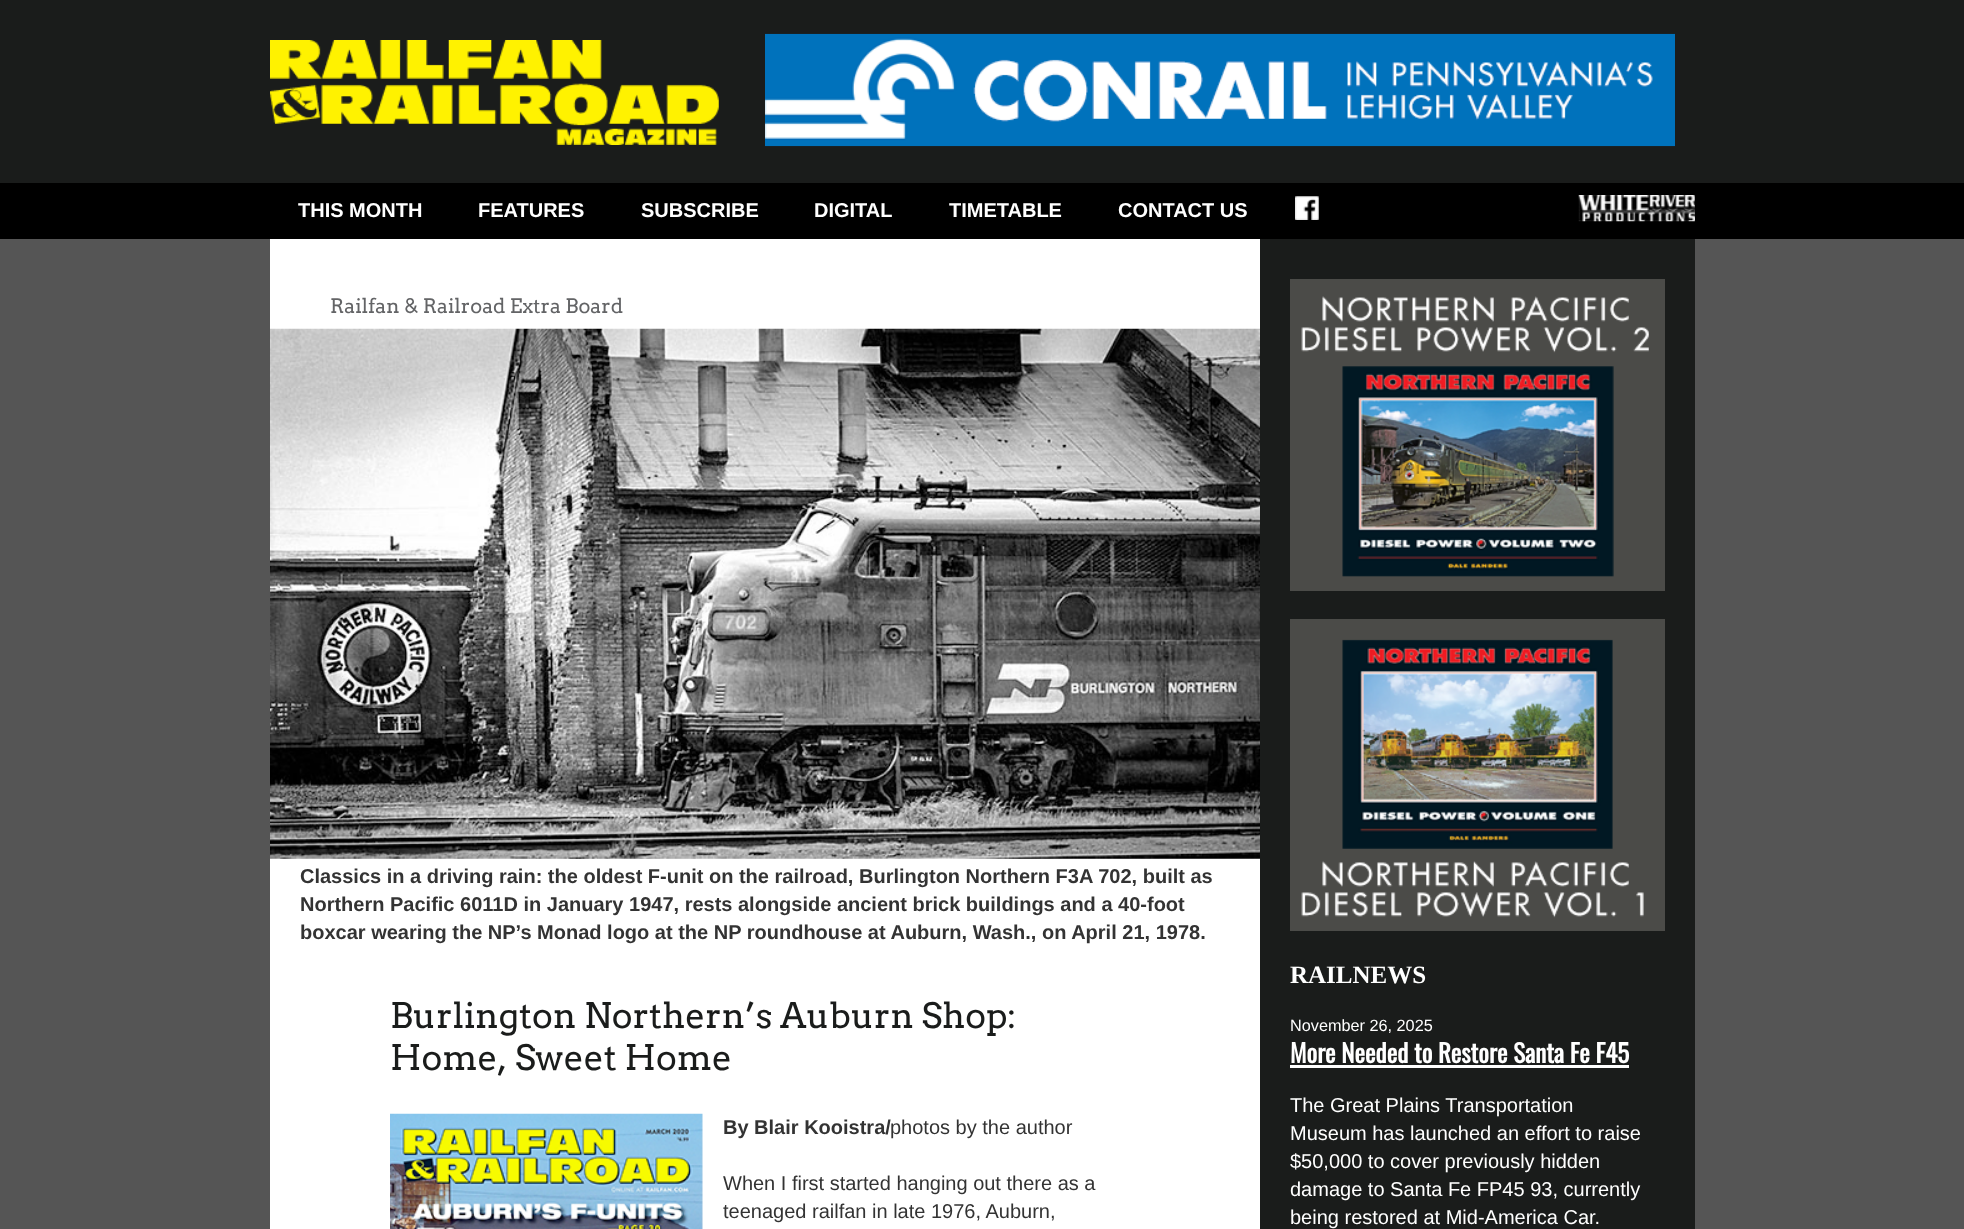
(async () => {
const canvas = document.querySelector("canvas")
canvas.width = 1964
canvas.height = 1229
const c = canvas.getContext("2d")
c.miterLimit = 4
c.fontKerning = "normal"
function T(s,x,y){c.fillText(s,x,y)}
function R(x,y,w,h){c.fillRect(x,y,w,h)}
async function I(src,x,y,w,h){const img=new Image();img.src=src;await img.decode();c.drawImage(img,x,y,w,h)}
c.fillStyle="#555"
R(0,0,1964,1229)
c.fillStyle="#1a1c1b"
R(0,0,1964,183)
await I("1.png",270,40,449,105)
await I("2.png",765,33,910,114)
c.fillStyle="#000"
R(0,183,1964,56)
c.font="bold 20px Liberation Sans"
c.fillStyle="#fff"
T("THIS MONTH",298,217)
T("FEATURES",478,217)
T("SUBSCRIBE",641,217)
T("DIGITAL",814,217)
T("TIMETABLE",949,217)
T("CONTACT US",1118,217)
await I("3.png",1295,196,24,24)
await I("4.png",1578,195,117,27)
c.fillStyle="#1a1c1b"
R(1260,239,435,990)
c.fillStyle="#fff"
R(270,239,990,990)
c.font="20px Arvo"
c.fillStyle="#636466"
T("Railfan & Railroad Extra Board",330,313)
await I("5.png",270,328,990,531)
c.font="bold 20px Liberation Sans"
c.fillStyle="#333"
T("Classics in a driving rain: the oldest F-unit on the railroad, Burlington Northern F3A 702, built as",300,883)
T("Northern Pacific 6011D in January 1947, rests alongside ancient brick buildings and a 40-foot",300,911)
T("boxcar wearing the NP’s Monad logo at the NP roundhouse at Auburn, Wash., on April 21, 1978.",300,939)
c.font="35px Arvo"
c.fillStyle="#1a1c1b"
T("Burlington Northern’s Auburn Shop:",390,1028)
T("Home, Sweet Home",390,1070)
await I("6.png",390,1113,313,116)
c.font="bold 20px Liberation Sans"
c.fillStyle="#333"
T("By Blair Kooistra/",723,1134)
c.font="20px Liberation Sans"
T("photos by the author",890,1134)
T("When I first started hanging out there as a",723,1190)
T("teenaged railfan in late 1976, Auburn,",723,1218)
await I("7.png",1290,279,375,312)
await I("8.png",1290,619,375,312)
c.font="bold 25px Liberation Serif"
c.fillStyle="#fff"
T("RAILNEWS",1290,983)
c.font="16.25px Liberation Sans"
T("November 26, 2025",1290,1031)
c.font="bold 25px Oswald"
T("More Needed to Restore Santa Fe F45",1290,1063)
R(1290,1065,339,3)
c.font="20px Liberation Sans"
T("The Great Plains Transportation",1290,1112)
T("Museum has launched an effort to raise",1290,1140)
T("$50,000 to cover previously hidden",1290,1168)
T("damage to Santa Fe FP45 93, currently",1290,1196)
T("being restored at Mid-America Car.",1290,1224)
})()
